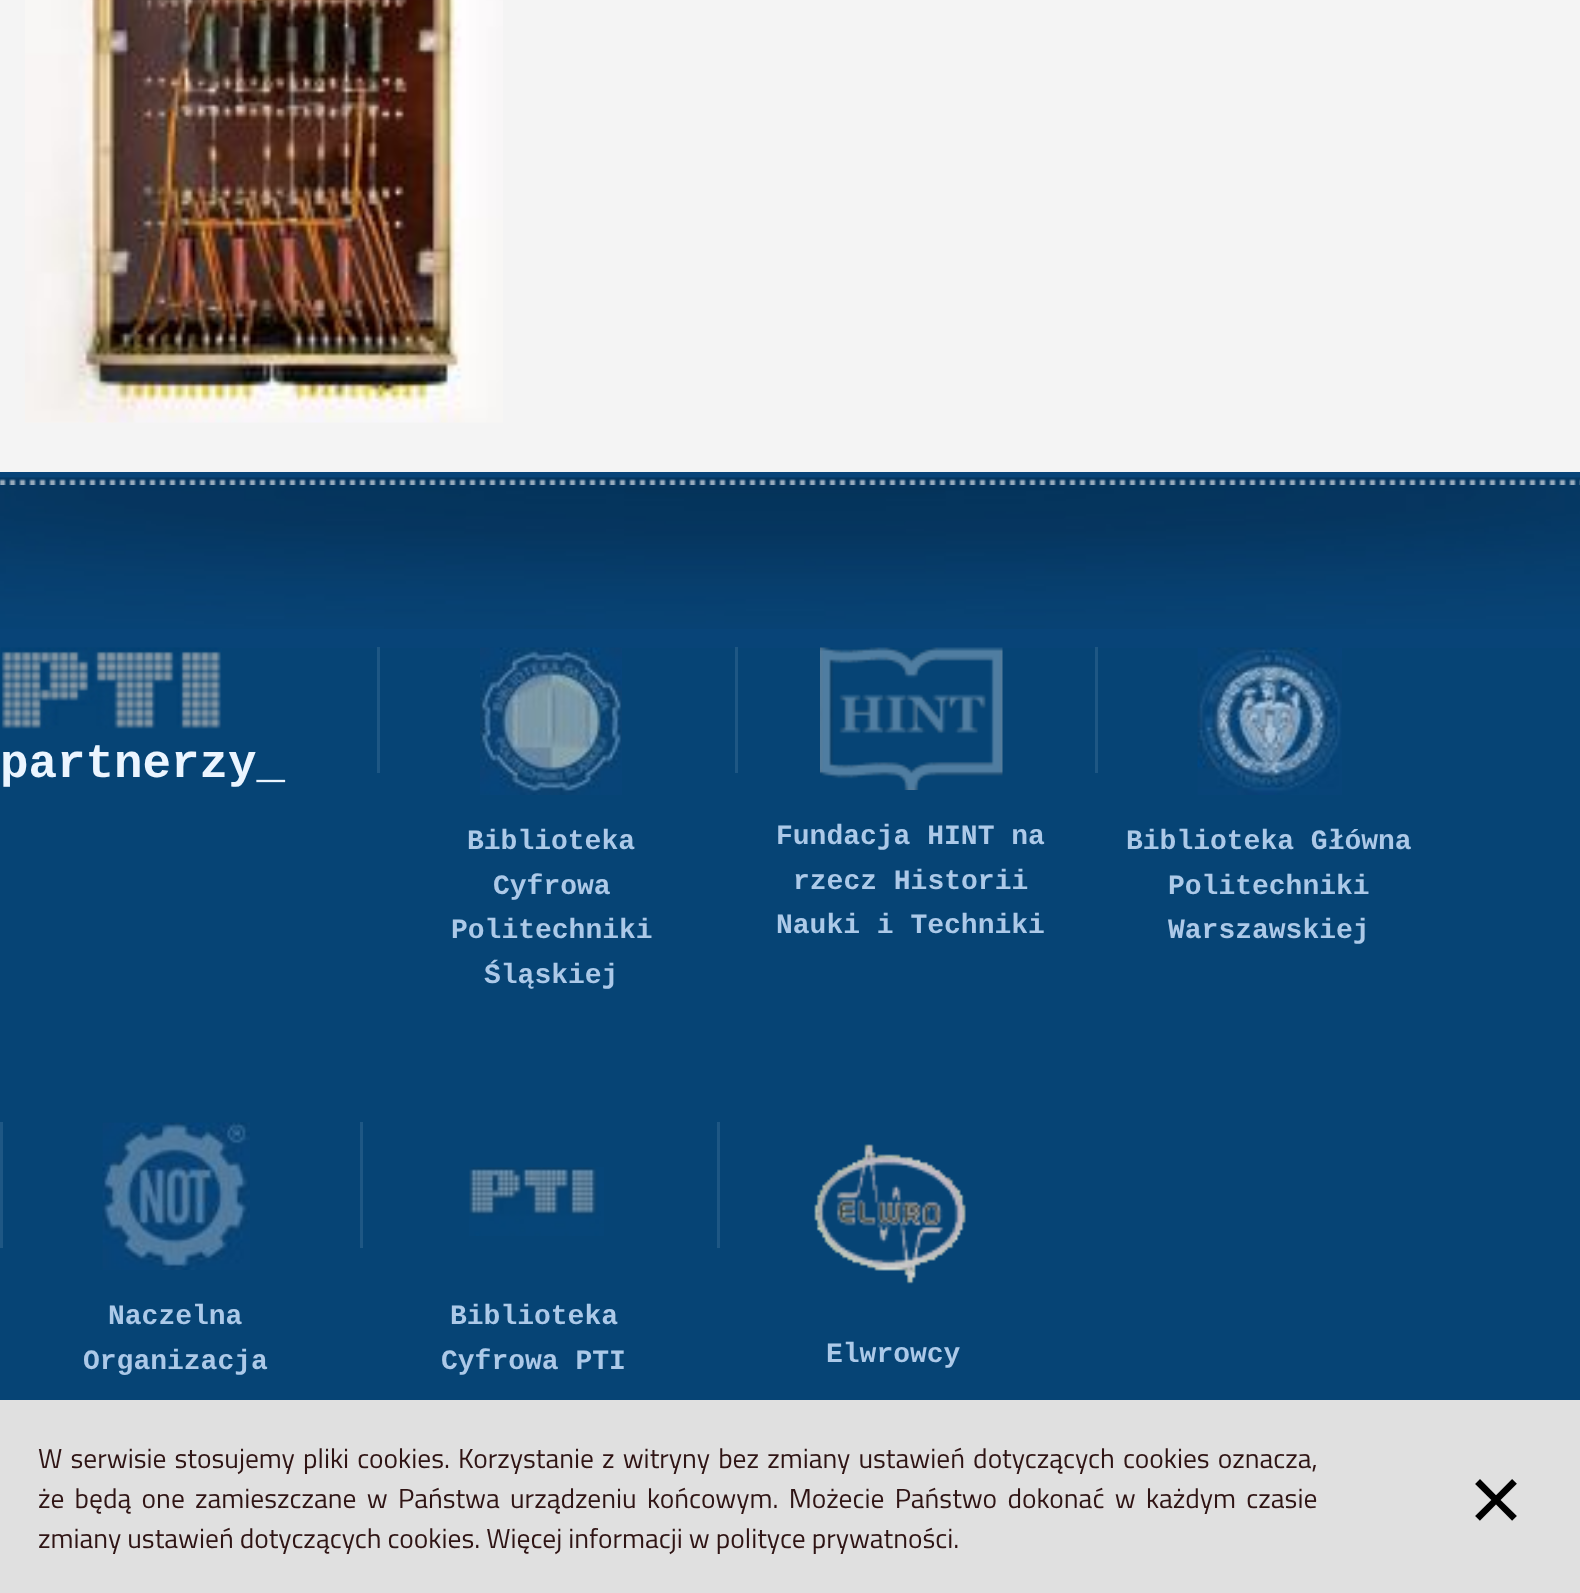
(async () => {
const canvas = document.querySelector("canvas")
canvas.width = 1580
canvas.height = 1593
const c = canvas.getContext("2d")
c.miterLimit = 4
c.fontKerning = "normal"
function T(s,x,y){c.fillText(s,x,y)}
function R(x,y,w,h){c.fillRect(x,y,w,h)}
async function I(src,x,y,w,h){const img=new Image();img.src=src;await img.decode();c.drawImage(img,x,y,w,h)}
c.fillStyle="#f4f4f4"
R(0,0,1580,1593)
await I("1.png",25,0,478,423)
c.fillStyle="#084478"
R(0,472,1580,176)
await I("3.png",0,477,1580,152)
await I("2.png",0,479,1580,6)
c.fillStyle="#064475"
R(0,648,1580,752)
await I("4.png",1,647,221,82)
c.font="bold 47.5px Liberation Mono"
c.fillStyle="#ebf5ff"
T("partnerzy_",0,777)
c.fillStyle="#1e5784"
R(377,647,3,126)
await I("5.png",480,647,142,148)
c.font="bold 28px Liberation Mono"
c.fillStyle="#acc9e8"
T("Biblioteka",467,849)
T("Cyfrowa",493,894)
T("Politechniki",451,938)
T("Śląskiej",484,983)
c.fillStyle="#1e5784"
R(735,647,3,126)
await I("6.png",820,647,183,143)
c.fillStyle="#acc9e8"
T("Fundacja HINT na",776,844)
T("rzecz Historii",793,889)
T("Nauki i Techniki",776,933)
c.fillStyle="#1e5784"
R(1095,647,3,126)
await I("7.png",1197,647,145,148)
c.fillStyle="#acc9e8"
T("Biblioteka Główna",1126,849)
T("Politechniki",1168,894)
T("Warszawskiej",1168,938)
c.fillStyle="#1e5784"
R(0,1122,3,126)
await I("8.png",102,1122,148,148)
c.fillStyle="#acc9e8"
T("Naczelna",108,1324)
T("Organizacja",83,1369)
c.fillStyle="#1e5784"
R(360,1122,3,126)
await I("9.png",469,1167,135,69)
c.fillStyle="#acc9e8"
T("Biblioteka",450,1324)
T("Cyfrowa PTI",441,1369)
c.fillStyle="#1e5784"
R(717,1122,3,126)
await I("10.png",814,1144,152,140)
c.fillStyle="#acc9e8"
T("Elwrowcy",826,1362)
c.fillStyle="#e0e0e0"
R(0,1400,1580,193)
c.wordSpacing="2.1px"
c.font="27.5px Titillium Web"
c.fillStyle="#2f1414"
T("W serwisie stosujemy pliki cookies. Korzystanie z witryny bez zmiany ustawień dotyczących cookies oznacza,",38,1468)
c.wordSpacing="4.25px"
T("że będą one zamieszczane w Państwa urządzeniu końcowym. Możecie Państwo dokonać w każdym czasie",38,1508)
c.wordSpacing="0px"
T("zmiany ustawień dotyczących cookies. Więcej informacji w polityce prywatności.",38,1548)
c.font="100px Titillium Web"
c.fillStyle="#000"
T("×",1468,1525)
})()
